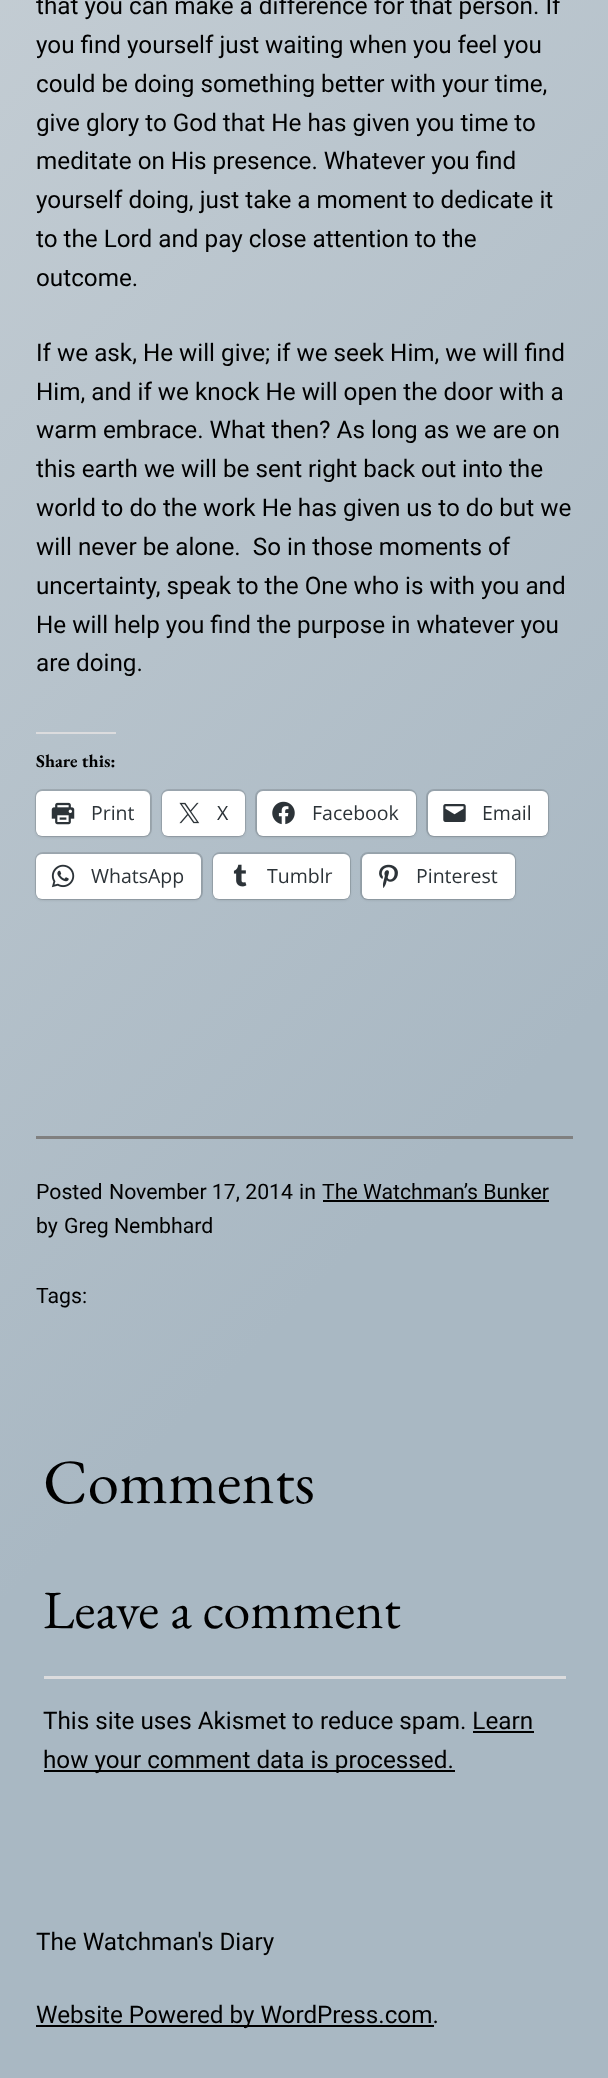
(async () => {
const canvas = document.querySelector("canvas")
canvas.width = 608
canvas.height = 2078
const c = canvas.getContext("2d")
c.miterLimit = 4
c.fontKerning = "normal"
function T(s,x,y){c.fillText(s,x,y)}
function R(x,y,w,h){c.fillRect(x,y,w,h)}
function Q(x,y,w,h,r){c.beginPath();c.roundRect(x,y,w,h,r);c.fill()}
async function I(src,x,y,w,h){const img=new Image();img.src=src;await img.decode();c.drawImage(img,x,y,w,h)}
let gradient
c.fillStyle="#fff"
R(0,0,608,2078)
gradient = c.createLinearGradient(-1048,-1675,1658,1030)
gradient.addColorStop(0,"#eee")
gradient.addColorStop(.8,"#a9b8c3")
c.fillStyle = gradient
R(0,0,608,2078)
c.font="24.25px Roboto"
c.fillStyle="#000"
T("that you can make a difference for that person. If",36,14)
T("you find yourself just waiting when you feel you",36,53)
T("could be doing something better with your time,",36,92)
T("give glory to God that He has given you time to",36,131)
T("meditate on His presence. Whatever you find",36,169)
T("yourself doing, just take a moment to dedicate it",36,208)
T("to the Lord and pay close attention to the",36,247)
T("outcome.",36,286)
T("If we ask, He will give; if we seek Him, we will find",36,361)
T("Him, and if we knock He will open the door with a",36,400)
T("warm embrace. What then? As long as we are on",36,438)
T("this earth we will be sent right back out into the",36,477)
T("world to do the work He has given us to do but we",36,516)
T("will never be alone.  So in those moments of",36,555)
T("uncertainty, speak to the One who is with you and",36,594)
T("He will help you find the purpose in whatever you",36,633)
T("are doing.",36,671)
c.fillStyle="#dcdcde"
R(36,732,80,2)
c.font="bold 18px EB Garamond"
c.fillStyle="#000"
T("Share this:",36,767)
c.beginPath()
c.roundRect(36,790,115,46,7)
c.strokeStyle="#9faab2"
c.lineWidth=2
c.stroke()
c.fillStyle="#0000001f"
c.filter="blur(1.5px)"
c.beginPath()
c.roundRect(36,792,114,45,6)
c.fill()
c.filter="none"
c.fillStyle="#fff"
Q(36,791,114,45,6)
await I("1.png",51,802,24,23)
c.font="19.5px Open Sans"
c.fillStyle="#2c3338"
T("Print",91,820)
c.beginPath()
c.roundRect(162,790,83,46,7)
c.strokeStyle="#9da8b1"
c.stroke()
c.fillStyle="#0000001f"
c.filter="blur(1.5px)"
c.beginPath()
c.roundRect(162,792,83,45,6)
c.fill()
c.filter="none"
c.fillStyle="#fff"
Q(162,791,83,45,6)
await I("2.png",179,802,21,22)
c.fillStyle="#2c3338"
T("X",217,820)
c.beginPath()
c.roundRect(256,790,160,46,7)
c.strokeStyle="#0000001f"
c.stroke()
c.fillStyle="#0000001f"
c.filter="blur(1.5px)"
c.beginPath()
c.roundRect(257,792,159,45,6)
c.fill()
c.filter="none"
c.fillStyle="#fff"
Q(257,791,159,45,6)
await I("3.png",272,801,23,24)
c.fillStyle="#2c3338"
T("Facebook",312,820)
c.beginPath()
c.roundRect(427,790,121,46,7)
c.strokeStyle="#99a5ae"
c.stroke()
c.fillStyle="#0000001f"
c.filter="blur(1.5px)"
c.beginPath()
c.roundRect(428,792,120,45,6)
c.fill()
c.filter="none"
c.fillStyle="#fff"
Q(428,791,120,45,6)
await I("4.png",443,804,23,18)
c.fillStyle="#2c3338"
T("Email",482,820)
c.beginPath()
c.roundRect(36,853,166,46,7)
c.strokeStyle="#0000001f"
c.stroke()
c.fillStyle="#0000001f"
c.filter="blur(1.5px)"
c.beginPath()
c.roundRect(36,855,165,45,6)
c.fill()
c.filter="none"
c.fillStyle="#fff"
Q(36,854,165,45,6)
await I("5.png",51,864,24,24)
c.fillStyle="#2c3338"
T("WhatsApp",91,883)
c.beginPath()
c.roundRect(213,853,137,46,7)
c.stroke()
c.fillStyle="#0000001f"
c.filter="blur(1.5px)"
c.beginPath()
c.roundRect(213,855,137,45,6)
c.fill()
c.filter="none"
c.fillStyle="#fff"
Q(213,854,137,45,6)
await I("6.png",233,864,14,23)
c.fillStyle="#2c3338"
T("Tumblr",267,883)
c.beginPath()
c.roundRect(361,853,154,46,7)
c.stroke()
c.fillStyle="#0000001f"
c.filter="blur(1.5px)"
c.beginPath()
c.roundRect(362,855,153,45,6)
c.fill()
c.filter="none"
c.fillStyle="#fff"
Q(362,854,153,45,6)
await I("7.png",379,864,19,24)
c.fillStyle="#2c3338"
T("Pinterest",416,883)
c.fillStyle="#808080"
R(36,1136,537,3)
c.font="21.25px Roboto"
c.fillStyle="#000"
T("Posted",36,1199)
T("November 17, 2014",109,1199)
T("in",299,1199)
T("The Watchman’s Bunker",322,1199)
R(323,1200,226,2)
T("by",36,1233)
T("Greg Nembhard",64,1233)
T("Tags:",36,1303)
c.font="63px EB Garamond"
T("Comments",43,1503)
c.font="54px EB Garamond"
T("Leave a comment",43,1628)
c.fillStyle="#dcdcde"
R(44,1676,522,3)
c.font="24.25px Roboto"
c.fillStyle="#000"
T("This site uses Akismet to reduce spam. Learn",43,1729)
R(44,1770,411,2)
T("how your comment data is processed.",43,1768)
R(473,1731,61,2)
T("The Watchman's Diary",36,1950)
R(36,2025,398,2)
T("Website Powered by WordPress.com.",36,2023)
})()
